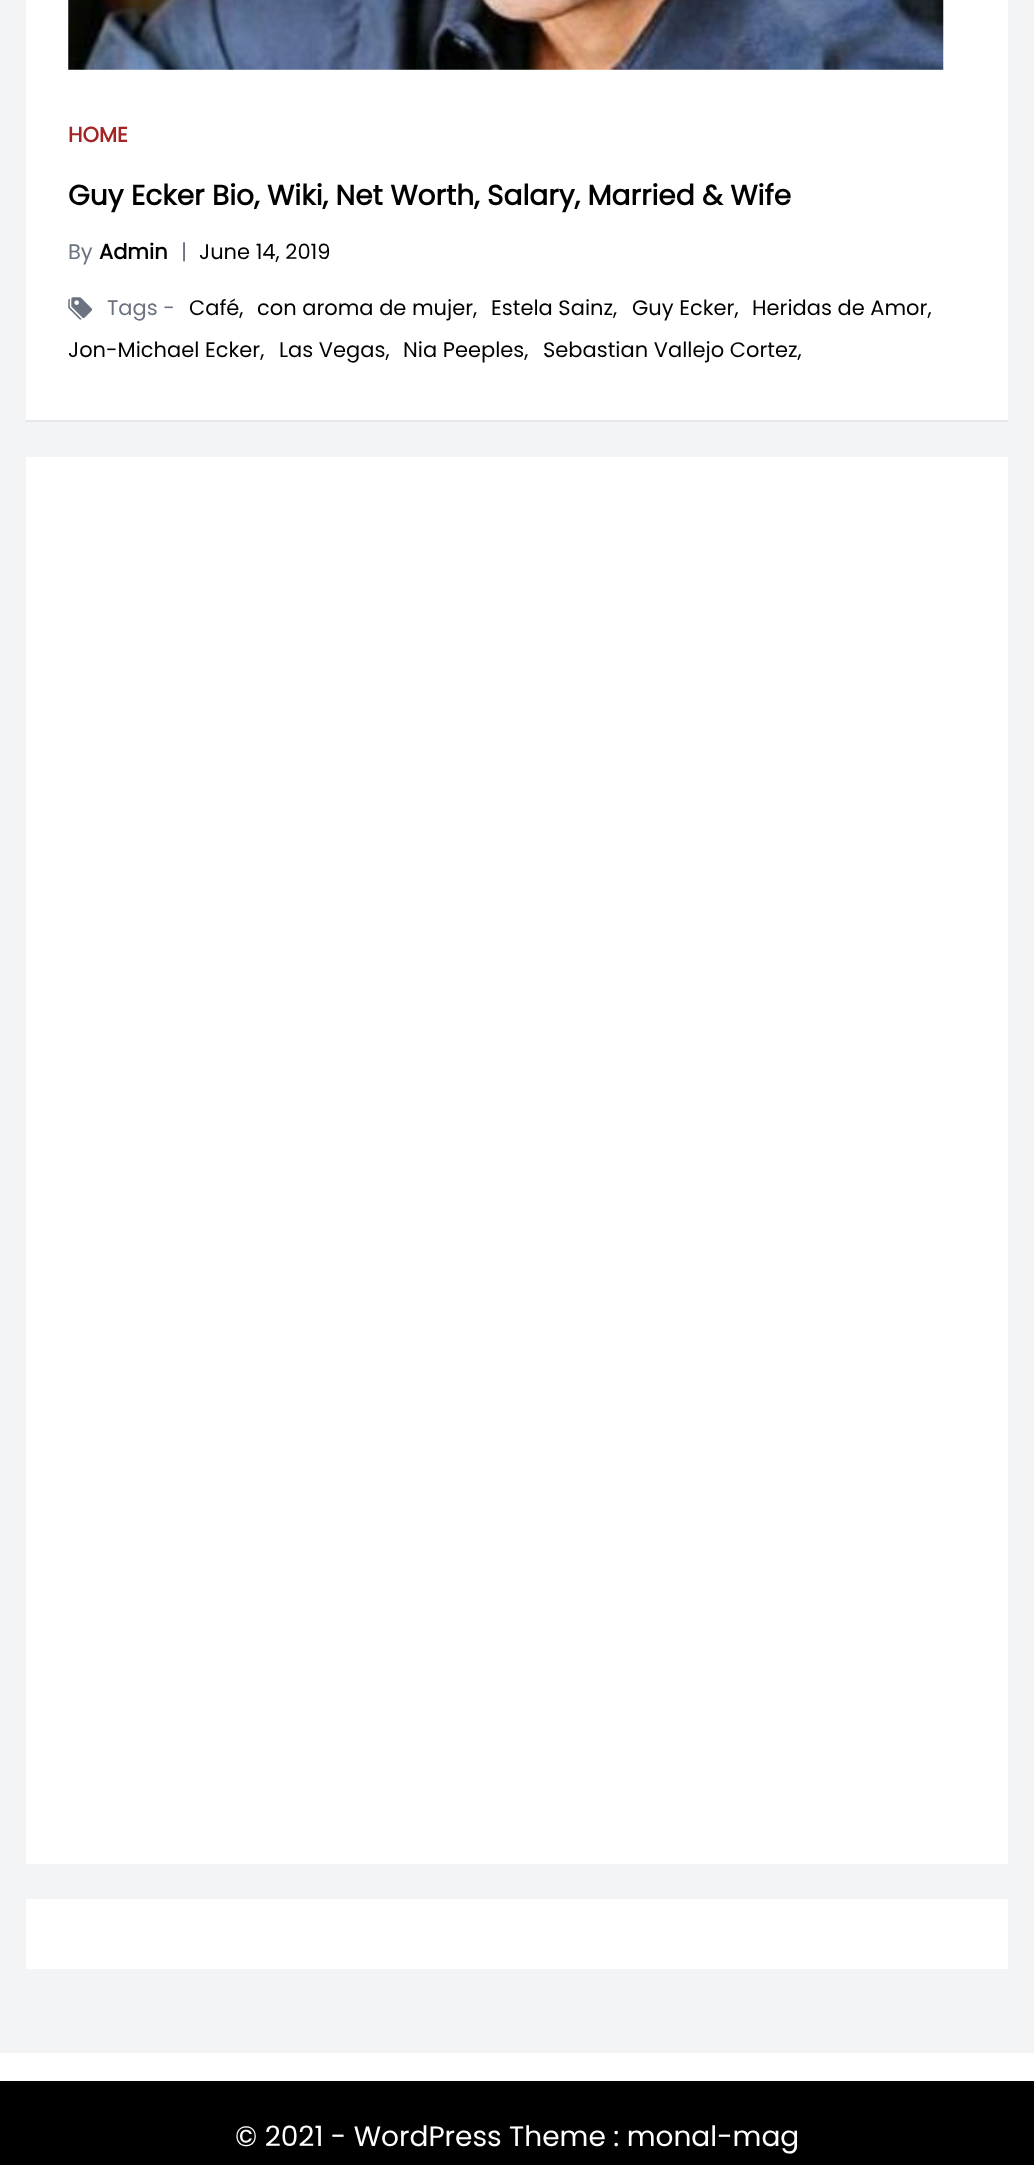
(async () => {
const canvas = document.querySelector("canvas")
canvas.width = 1034
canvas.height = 2165
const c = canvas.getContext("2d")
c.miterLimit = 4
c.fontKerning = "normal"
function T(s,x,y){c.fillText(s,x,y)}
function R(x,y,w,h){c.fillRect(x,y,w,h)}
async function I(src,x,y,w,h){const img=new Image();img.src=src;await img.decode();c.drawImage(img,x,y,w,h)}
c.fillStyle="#fff"
R(0,0,1034,2165)
c.fillStyle="#f3f4f5"
R(0,0,1034,2053)
c.fillStyle="#fff"
R(26,0,982,420)
c.fillStyle="#e5e7eb"
R(26,420,982,2)
await I("1.png",68,0,876,70)
c.font="bold 21px Poppins"
c.fillStyle="#a32424"
T("HOME",68,142)
c.font="bold 28px Poppins"
c.fillStyle="#000"
T("Guy Ecker Bio, Wiki, Net Worth, Salary, Married & Wife",68,205)
c.font="21px Poppins"
c.fillStyle="#6b7280"
T("By",68,259)
c.font="bold 21px Poppins"
c.fillStyle="#000"
T("Admin",99,259)
c.font="21px Poppins"
c.fillStyle="#6b7280"
T("|",181,259)
c.fillStyle="#000"
T("June 14, 2019",199,259)
await I("2.png",68,297,25,23)
c.fillStyle="#6b7280"
T("Tags -",107,315)
c.fillStyle="#000"
T("Café,",189,315)
T("con aroma de mujer,",257,315)
T("Estela Sainz,",491,315)
T("Guy Ecker,",632,315)
T("Heridas de Amor,",752,315)
T("Jon-Michael Ecker,",68,357)
T("Las Vegas,",279,357)
T("Nia Peeples,",403,357)
T("Sebastian Vallejo Cortez,",543,357)
c.fillStyle="#fff"
R(26,457,982,1407)
R(26,1899,982,70)
c.fillStyle="#000"
R(0,2081,1034,84)
c.font="28px Poppins"
c.fillStyle="#fff"
T("© 2021 - WordPress Theme : monal-mag",235,2146)
})()
